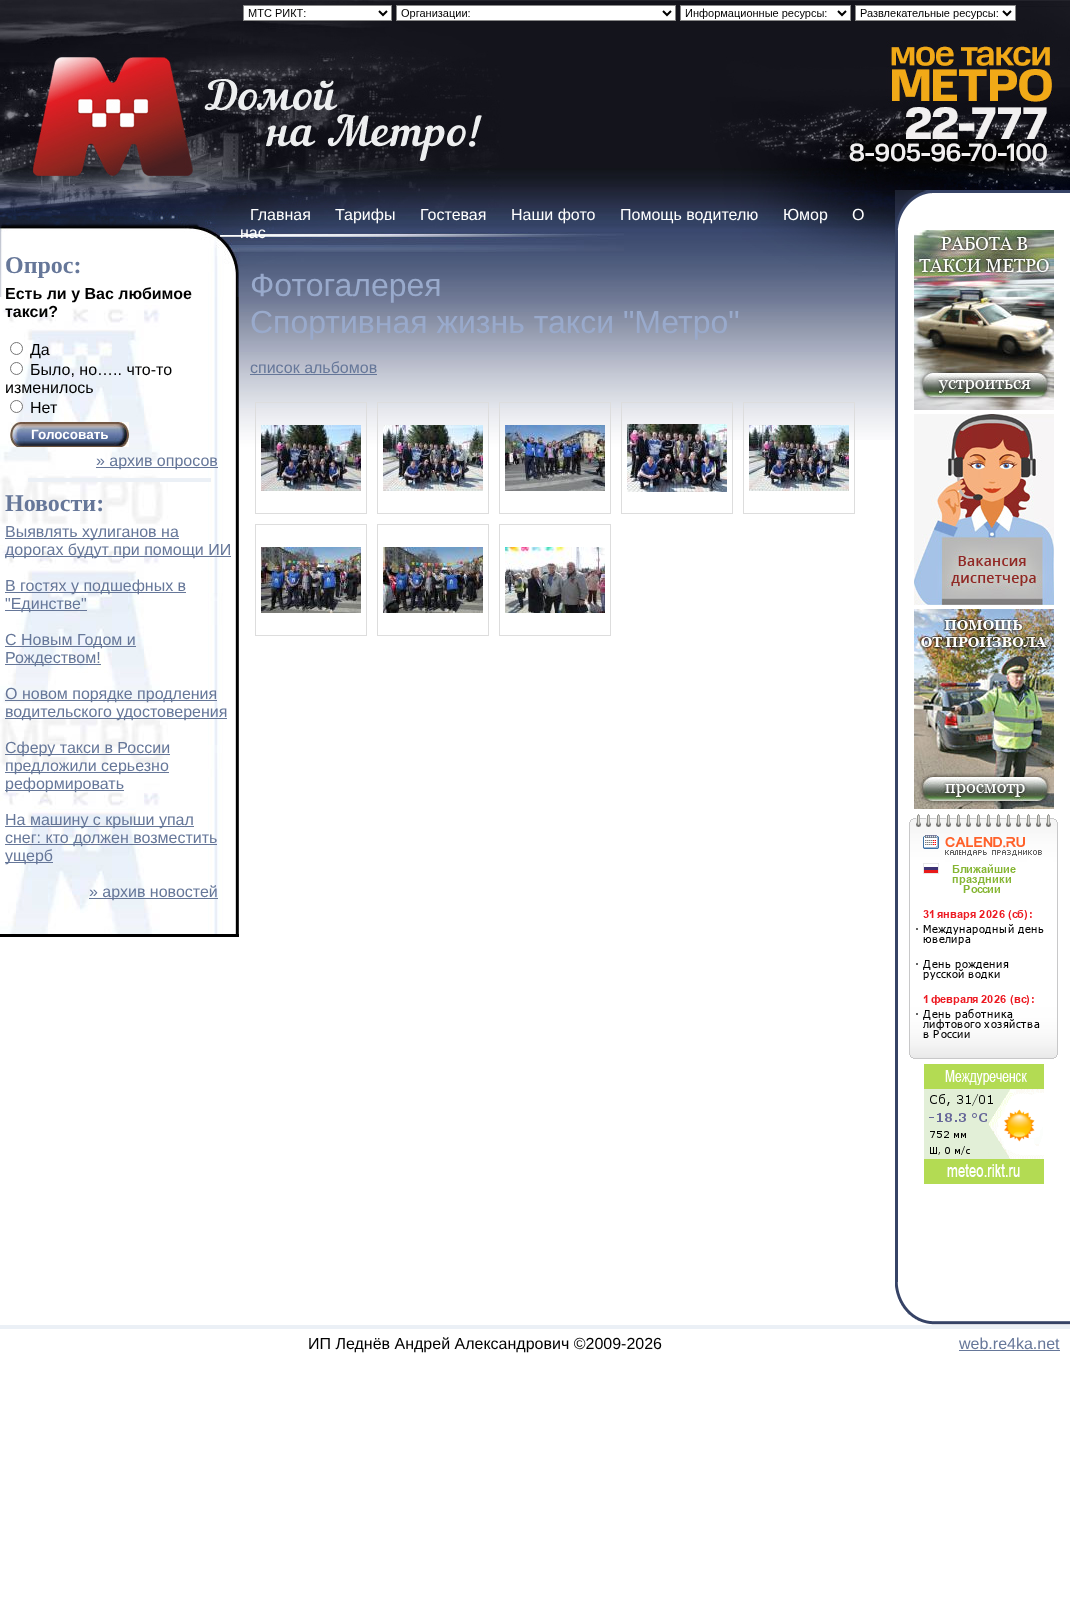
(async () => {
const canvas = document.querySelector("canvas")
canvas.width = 1070
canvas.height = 1624
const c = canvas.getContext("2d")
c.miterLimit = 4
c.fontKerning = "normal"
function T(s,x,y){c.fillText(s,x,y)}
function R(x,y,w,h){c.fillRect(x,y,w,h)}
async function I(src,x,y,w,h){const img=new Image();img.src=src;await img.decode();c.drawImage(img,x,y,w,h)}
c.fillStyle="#fff"
R(0,0,1070,1624)
await I("1.png",624,0,446,440)
await I("3.png",710,1,360,275)
await I("4.png",0,0,624,448)
await I("2.png",243,5,773,16)
await I("5.png",220,235,377,2)
c.font="16px Liberation Sans"
T("Главная",250,220)
T("Тарифы",335,220)
T("Гостевая",420,220)
T("Наши фото",511,220)
T("Помощь водителю",620,220)
T("Юмор",783,220)
T("О",852,220)
T("нас",240,238)
await I("6.png",0,297,239,637)
c.fillStyle="#000"
R(0,934,239,3)
c.font="bold 24px Liberation Serif"
c.fillStyle="#679"
T("Опрос:",5,273)
c.font="bold 16px Liberation Sans"
c.fillStyle="#000"
T("Есть ли у Вас любимое",5,299)
T("такси?",5,317)
c.beginPath()
c.arc(16.5,348.5,6,0,7)
c.strokeStyle="#767676"
c.stroke()
c.font="16px Liberation Sans"
T("Да",30,355)
c.fillStyle="#fff"
c.beginPath()
c.arc(16.5,368.5,6,0,7)
c.fill()
c.stroke()
c.fillStyle="#000"
T("Было, но….. что-то",30,375)
T("изменилось",5,393)
c.fillStyle="#fff"
c.beginPath()
c.arc(16.5,406.5,6,0,7)
c.fill()
c.stroke()
c.fillStyle="#000"
T("Нет",30,413)
await I("7.png",10,422,119,25)
c.font="bold 13.5px Liberation Sans"
c.fillStyle="#fff"
T("Голосовать",31,439)
c.fillStyle="#679"
R(96,467,122,1)
c.font="16px Liberation Sans"
T("» архив опросов",96,466)
c.fillStyle="#ebf0f6"
R(28,478,183,4)
c.font="bold 24px Liberation Serif"
c.fillStyle="#679"
T("Новости:",5,511)
R(5,538,174,1)
c.font="16px Liberation Sans"
T("Выявлять хулиганов на",5,537)
R(5,556,226,1)
T("дорогах будут при помощи ИИ",5,555)
R(5,592,181,1)
T("В гостях у подшефных в",5,591)
R(5,610,82,1)
T("\"Единстве\"",5,609)
R(5,646,131,1)
T("С Новым Годом и",5,645)
R(5,664,96,1)
T("Рождеством!",5,663)
R(5,700,212,1)
T("О новом порядке продления",5,699)
R(5,718,222,1)
T("водительского удостоверения",5,717)
R(5,754,165,1)
T("Сферу такси в России",5,753)
R(5,772,164,1)
T("предложили серьезно",5,771)
R(5,790,119,1)
T("реформировать",5,789)
R(5,826,189,1)
T("На машину с крыши упал",5,825)
R(5,844,212,1)
T("снег: кто должен возместить",5,843)
R(5,862,48,1)
T("ущерб",5,861)
R(89,898,129,1)
T("» архив новостей",89,897)
c.font="32px Liberation Sans"
c.fillStyle="#9ac"
T("Фотогалерея",250,296)
T("Спортивная жизнь такси \"Метро\"",250,333)
c.font="16px Liberation Sans"
c.fillStyle="#679"
T("список альбомов",250,373)
R(250,374,127,1)
c.strokeStyle="#ddd"
c.strokeRect(255.5,402.5,111,111)
await I("8.png",261,425,100,66)
c.strokeRect(377.5,402.5,111,111)
await I("9.png",383,425,100,66)
c.strokeRect(499.5,402.5,111,111)
await I("10.png",505,425,100,66)
c.strokeRect(621.5,402.5,111,111)
await I("11.png",627,424,100,68)
c.strokeRect(743.5,402.5,111,111)
await I("12.png",749,425,100,66)
c.strokeRect(255.5,524.5,111,111)
await I("13.png",261,547,100,66)
c.strokeRect(377.5,524.5,111,111)
await I("14.png",383,547,100,66)
c.strokeRect(499.5,524.5,111,111)
await I("15.png",505,547,100,66)
await I("16.png",895,190,175,800)
c.fillStyle="#364366"
R(897,230,1,583)
await I("17.png",914,230,140,180)
await I("18.png",914,414,140,191)
await I("19.png",914,609,140,200)
R(895,813,3,469)
await I("20.png",909,814,149,245)
await I("21.png",924,1064,120,120)
await I("22.png",895,1282,175,43)
c.fillStyle="#ebf0f6"
R(0,1325,1070,4)
c.fillStyle="#000"
T("ИП Леднёв Андрей Александрович ©2009-2026",308,1349)
c.fillStyle="#679"
T("web.re4ka.net",959,1349)
R(959,1350,101,1)
})()
